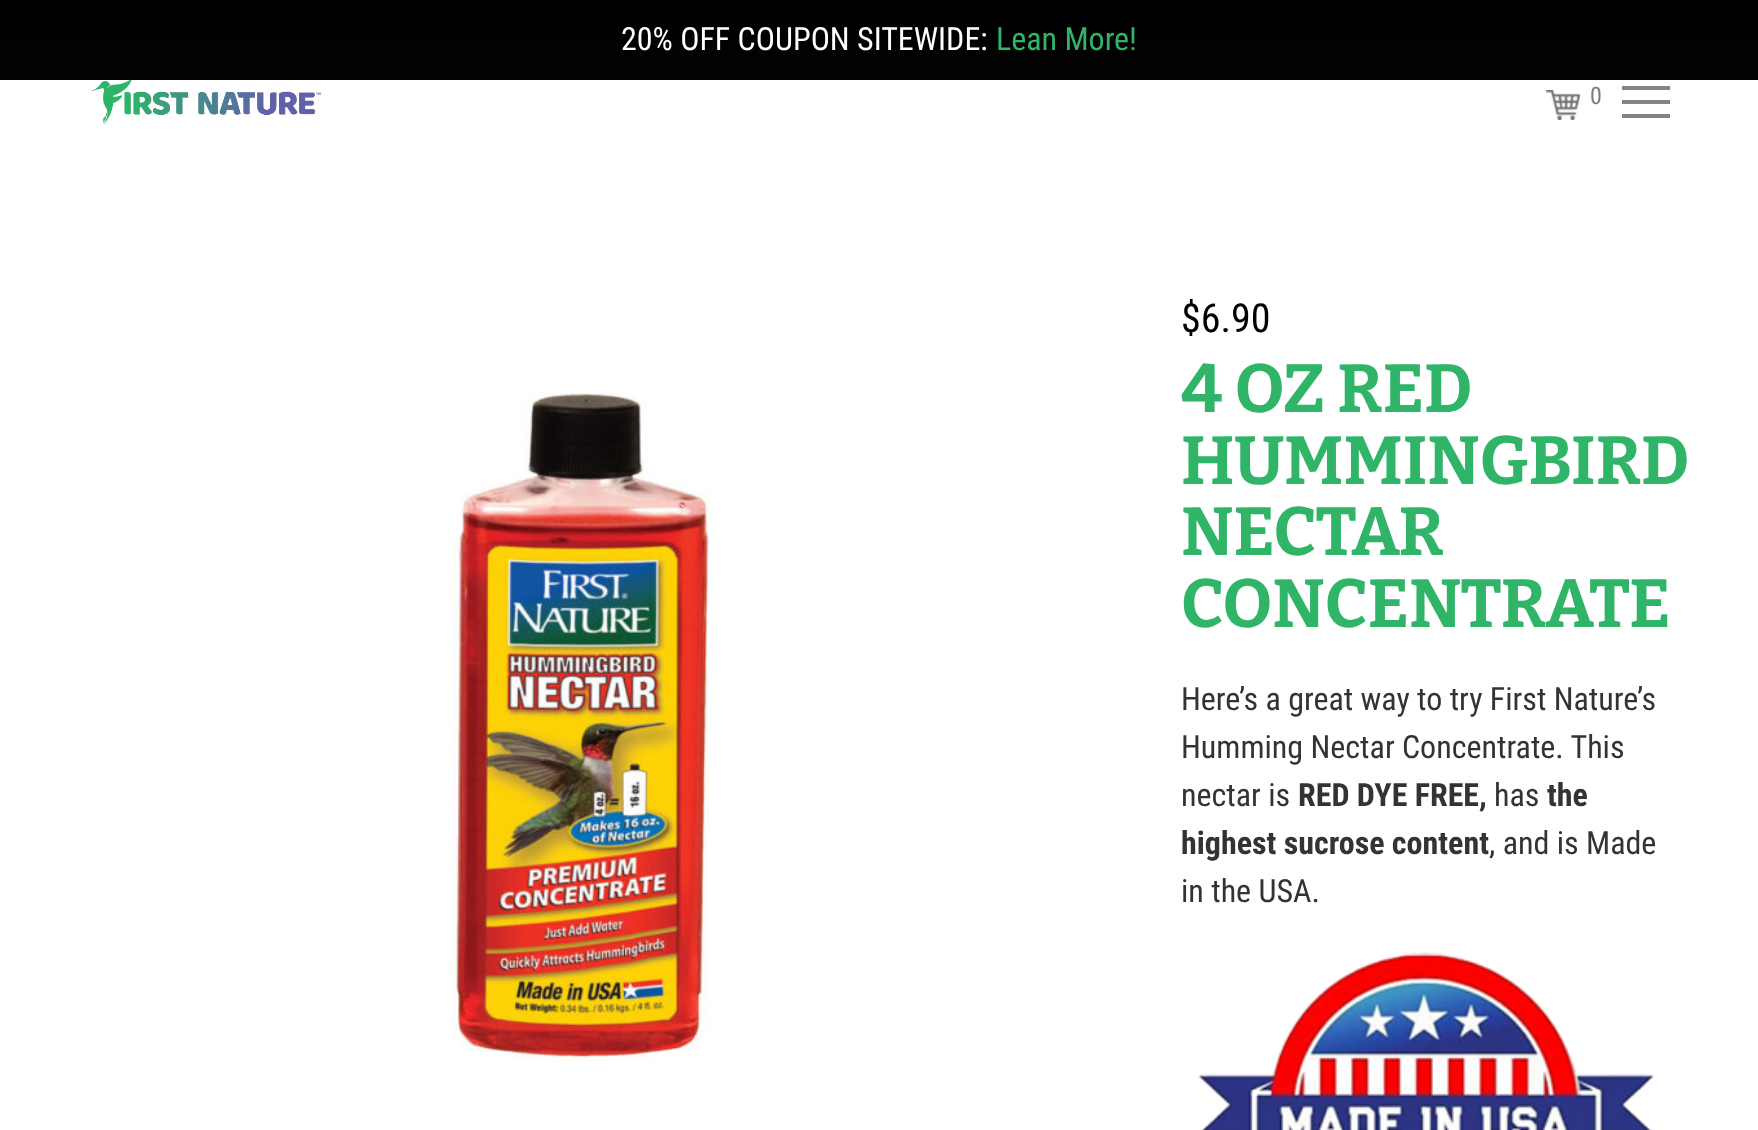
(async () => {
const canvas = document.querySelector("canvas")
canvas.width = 1758
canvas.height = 1130
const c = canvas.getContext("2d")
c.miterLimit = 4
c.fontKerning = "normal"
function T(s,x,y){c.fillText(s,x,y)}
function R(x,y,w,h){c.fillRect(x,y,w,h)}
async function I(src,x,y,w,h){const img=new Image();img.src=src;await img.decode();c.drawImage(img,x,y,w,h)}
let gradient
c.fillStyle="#fff"
R(0,0,1758,1130)
gradient = c.createLinearGradient(879,0,879,80)
gradient.addColorStop(0,"#000")
gradient.addColorStop(1,"#030303")
c.fillStyle = gradient
R(0,0,1758,80)
c.font="32px Roboto Condensed"
c.fillStyle="#fff"
T("20% OFF COUPON SITEWIDE:",621,50)
c.fillStyle="#30b568"
T("Lean More!",996,50)
await I("1.png",91,80,230,45)
await I("2.png",1545,90,35,30)
c.font="24px Roboto Condensed"
c.fillStyle="#7c7c7c"
T("0",1590,104)
c.fillStyle="#838383"
R(1622,86,48,4)
R(1622,100,48,4)
R(1622,114,48,4)
await I("3.png",450,390,259,672)
c.font="40px Roboto Condensed"
c.fillStyle="#000"
T("$6.90",1181,332)
c.font="100 68px Bitter"
c.fillStyle="#30b568"
T("4 OZ RED",1181,412)
T("HUMMINGBIRD",1181,484)
T("NECTAR",1181,555)
T("CONCENTRATE",1181,627)
c.font="32px Roboto Condensed"
c.fillStyle="#333"
T("Here’s a great way to try First Nature’s",1181,710)
T("Humming Nectar Concentrate. This",1181,758)
T("nectar is",1181,806)
c.font="bold 32px Roboto Condensed"
T("RED DYE FREE,",1298,806)
c.font="32px Roboto Condensed"
T("has",1494,806)
c.font="bold 32px Roboto Condensed"
T("the",1547,806)
T("highest sucrose content",1181,854)
c.font="32px Roboto Condensed"
T(", and is Made",1489,854)
T("in the USA.",1181,902)
await I("4.png",1198,952,456,178)
})()
